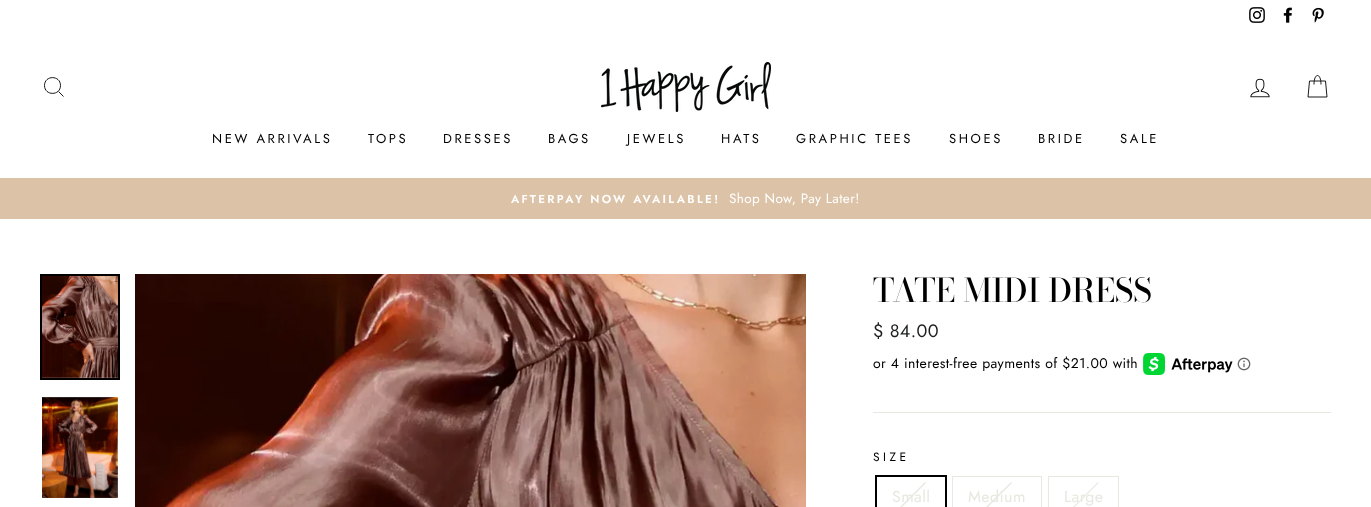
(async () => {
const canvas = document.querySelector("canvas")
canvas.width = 1371
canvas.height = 507
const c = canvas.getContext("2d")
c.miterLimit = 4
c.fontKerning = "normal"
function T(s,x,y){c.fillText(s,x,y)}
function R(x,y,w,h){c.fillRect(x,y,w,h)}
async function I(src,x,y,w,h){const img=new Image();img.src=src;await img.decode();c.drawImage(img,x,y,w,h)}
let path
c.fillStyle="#fff"
R(0,0,1371,507)
await I("1.png",1249,7,16,16)
await I("2.png",1283,7,9,16)
await I("3.png",1312,7,12,16)
path = new Path2D("M60.5 85.5c0 10.5-16 10.5-16 0c0-10.5 16-10.5 16 0zm3 11l-5-5")
c.strokeStyle="#000"
c.lineWidth=0.9
c.stroke(path)
await I("4.png",601,62,170,50)
await I("5.png",1250,78,20,20)
path = new Path2D("M1314 84.5c0-12 7-12 7 0m-11.5-3.5h16l1.5 16h-19z")
c.stroke(path)
c.letterSpacing="2.6px"
c.font="13px Jost"
c.fillStyle="#000"
T("NEW ARRIVALS",212,143)
T("TOPS",368,143)
T("DRESSES",443,143)
T("BAGS",548,143)
T("JEWELS",627,143)
T("HATS",721,143)
T("GRAPHIC TEES",796,143)
T("SHOES",949,143)
T("BRIDE",1038,143)
T("SALE",1120,143)
c.fillStyle="#dcc2a7"
R(0,178,1371,41)
c.letterSpacing="2.3px"
c.font="600 11.6px Jost"
c.fillStyle="#fff"
T("AFTERPAY NOW AVAILABLE!",511,203)
c.letterSpacing="0.4px"
c.font="13.5px Jost"
T("Shop Now, Pay Later!",729,203)
c.lineWidth=2
c.strokeRect(41,275,78,104)
await I("6.png",42,276,76,102)
await I("7.png",42,397,76,101)
await I("8.png",135,274,671,233)
c.letterSpacing="0px"
c.font="500 32.75px Bodoni Moda"
c.fillStyle="#000"
T("TATE MIDI DRESS",873,302)
c.letterSpacing="0.4px"
c.font="18px Jost"
c.fillStyle="#1c1d1d"
T("$ 84.00",873,337)
c.font="14px Jost"
c.fillStyle="#000"
T("or 4 interest-free payments of $21.00 with",873,368)
await I("9.png",1143,353,90,22)
await I("10.png",1237,357,14,14)
c.fillStyle="#e8e8e1"
R(873,412,458,1)
c.letterSpacing="3.5px"
c.font="12px Jost"
c.fillStyle="#000"
T("SIZE",873,461)
c.strokeRect(876,476,70,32)
c.fillStyle="#e8e8e1"
path = new Path2D("M925 482l1 1l-28 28l-1-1z")
c.fill(path)
c.letterSpacing="0.4px"
c.font="16px Jost"
T("Small",892,502)
c.strokeStyle="#e8e8e1"
c.lineWidth=1
c.strokeRect(952.5,476.5,89,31)
path = new Path2D("M1011 482l1 1l-28 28l-1-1z")
c.fill(path)
T("Medium",968,502)
c.strokeRect(1048.5,476.5,70,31)
path = new Path2D("M1098 482l.5 1l-28 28l-.5-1z")
c.fill(path)
T("Large",1064,502)
})()
